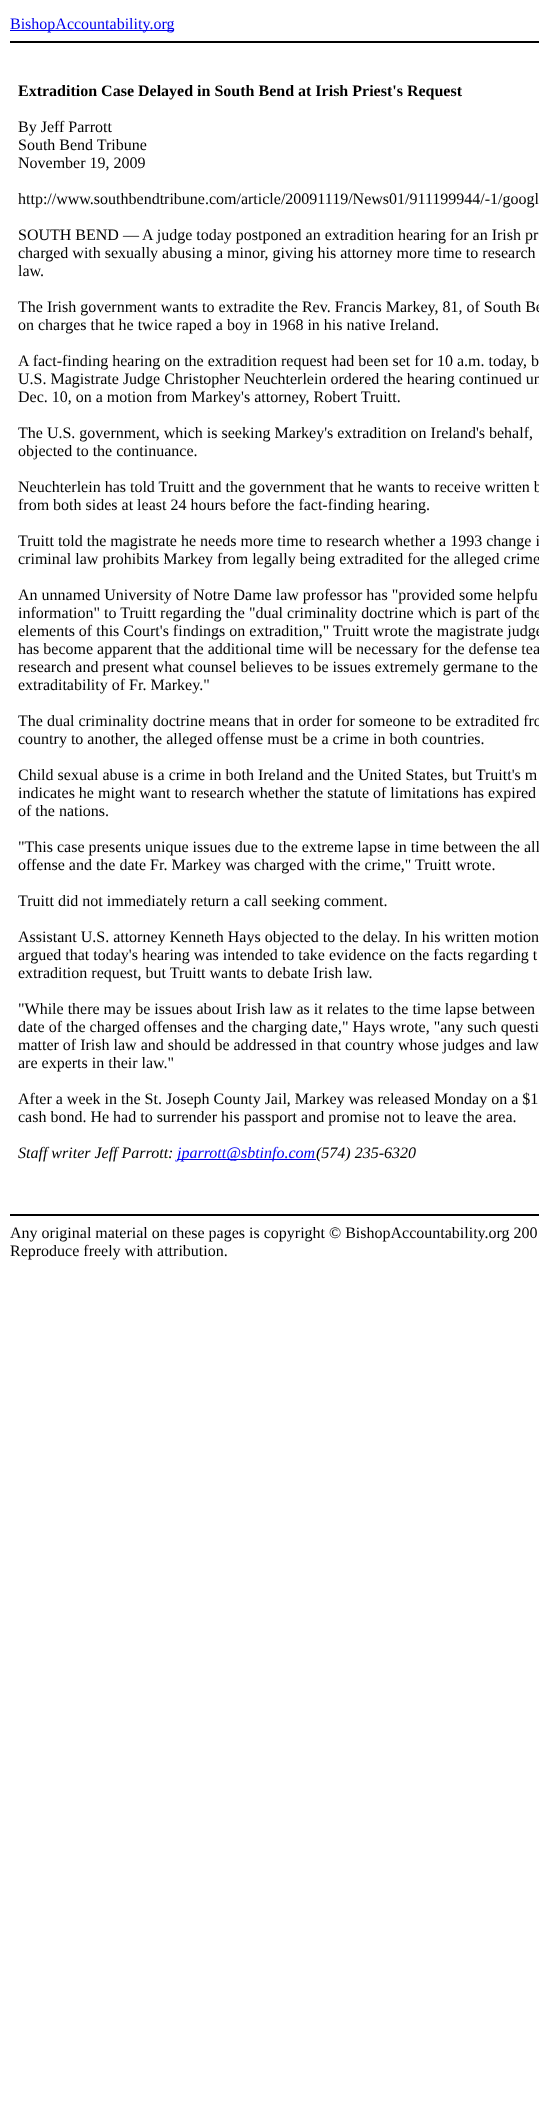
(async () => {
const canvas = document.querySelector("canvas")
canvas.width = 539
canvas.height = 2124
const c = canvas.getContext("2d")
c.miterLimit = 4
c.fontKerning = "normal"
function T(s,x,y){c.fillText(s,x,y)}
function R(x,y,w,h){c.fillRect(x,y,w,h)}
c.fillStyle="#fff"
R(0,0,539,2124)
c.fillStyle="#00e"
R(10,30,164,1)
c.font="16px Liberation Serif"
T("BishopAccountability.org",10,29)
c.fillStyle="#000"
R(10,41,529,2)
c.font="bold 16px Liberation Serif"
T("Extradition Case Delayed in South Bend at Irish Priest's Request",18,96)
c.font="16px Liberation Serif"
T("By Jeff Parrott",18,132)
T("South Bend Tribune",18,150)
T("November 19, 2009",18,168)
T("http://www.southbendtribune.com/article/20091119/News01/911199944/-1/googl",18,204)
T("SOUTH BEND — A judge today postponed an extradition hearing for an Irish pr",18,240)
T("charged with sexually abusing a minor, giving his attorney more time to research",18,258)
T("law.",18,276)
T("The Irish government wants to extradite the Rev. Francis Markey, 81, of South Be",18,312)
T("on charges that he twice raped a boy in 1968 in his native Ireland.",18,330)
T("A fact-finding hearing on the extradition request had been set for 10 a.m. today, b",18,366)
T("U.S. Magistrate Judge Christopher Neuchterlein ordered the hearing continued un",18,384)
T("Dec. 10, on a motion from Markey's attorney, Robert Truitt.",18,402)
T("The U.S. government, which is seeking Markey's extradition on Ireland's behalf,",18,438)
T("objected to the continuance.",18,456)
T("Neuchterlein has told Truitt and the government that he wants to receive written b",18,492)
T("from both sides at least 24 hours before the fact-finding hearing.",18,510)
T("Truitt told the magistrate he needs more time to research whether a 1993 change i",18,546)
T("criminal law prohibits Markey from legally being extradited for the alleged crime",18,564)
T("An unnamed University of Notre Dame law professor has \"provided some helpfu",18,600)
T("information\" to Truitt regarding the \"dual criminality doctrine which is part of the",18,618)
T("elements of this Court's findings on extradition,\" Truitt wrote the magistrate judge",18,636)
T("has become apparent that the additional time will be necessary for the defense tea",18,654)
T("research and present what counsel believes to be issues extremely germane to the",18,672)
T("extraditability of Fr. Markey.\"",18,690)
T("The dual criminality doctrine means that in order for someone to be extradited fro",18,726)
T("country to another, the alleged offense must be a crime in both countries.",18,744)
T("Child sexual abuse is a crime in both Ireland and the United States, but Truitt's m",18,780)
T("indicates he might want to research whether the statute of limitations has expired",18,798)
T("of the nations.",18,816)
T("\"This case presents unique issues due to the extreme lapse in time between the all",18,852)
T("offense and the date Fr. Markey was charged with the crime,\" Truitt wrote.",18,870)
T("Truitt did not immediately return a call seeking comment.",18,906)
T("Assistant U.S. attorney Kenneth Hays objected to the delay. In his written motion",18,942)
T("argued that today's hearing was intended to take evidence on the facts regarding t",18,960)
T("extradition request, but Truitt wants to debate Irish law.",18,978)
T("\"While there may be issues about Irish law as it relates to the time lapse between",18,1014)
T("date of the charged offenses and the charging date,\" Hays wrote, \"any such questi",18,1032)
T("matter of Irish law and should be addressed in that country whose judges and law",18,1050)
T("are experts in their law.\"",18,1068)
T("After a week in the St. Joseph County Jail, Markey was released Monday on a $1",18,1104)
T("cash bond. He had to surrender his passport and promise not to leave the area.",18,1122)
c.font="italic 16px Liberation Serif"
T("Staff writer Jeff Parrott:",18,1158)
c.fillStyle="#00e"
R(177,1159,139,1)
T("jparrott@sbtinfo.com",177,1158)
c.fillStyle="#000"
T("(574) 235-6320",316,1158)
R(10,1214,529,2)
c.font="16px Liberation Serif"
T("Any original material on these pages is copyright © BishopAccountability.org 200",10,1238)
T("Reproduce freely with attribution.",10,1256)
})()
